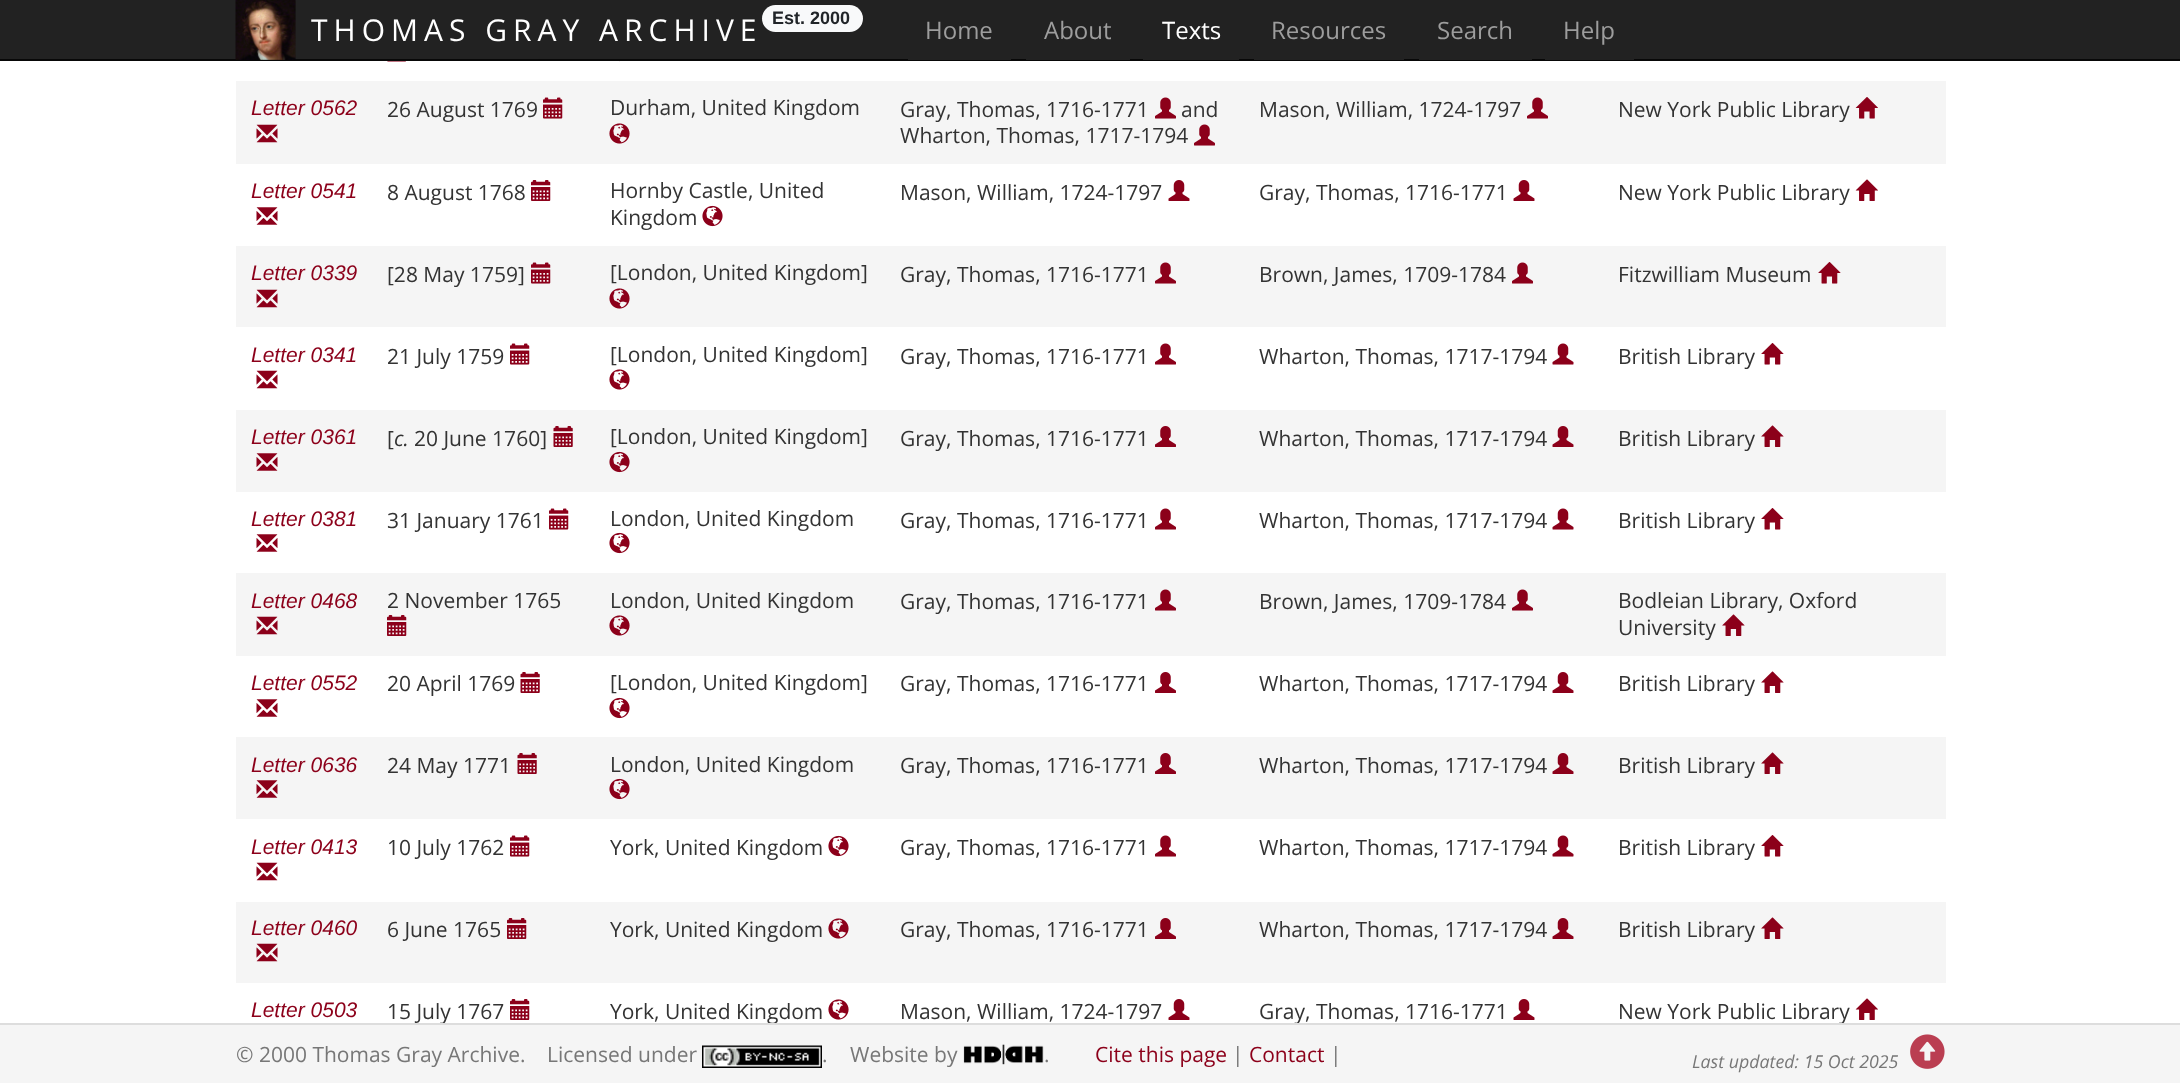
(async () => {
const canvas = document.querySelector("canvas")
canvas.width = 2180
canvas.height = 1083
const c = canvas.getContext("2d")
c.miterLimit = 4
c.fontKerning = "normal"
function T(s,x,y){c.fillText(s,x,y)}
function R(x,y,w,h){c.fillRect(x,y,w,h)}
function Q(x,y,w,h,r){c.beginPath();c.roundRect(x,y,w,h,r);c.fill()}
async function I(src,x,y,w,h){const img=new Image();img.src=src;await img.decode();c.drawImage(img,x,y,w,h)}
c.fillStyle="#fff"
R(0,0,2180,1083)
c.fillStyle="#222"
R(0,0,2180,59)
c.fillStyle="#080808"
R(0,59,2180,2)
await I("1.png",235,0,61,60)
c.letterSpacing="6px"
c.font="30px Open Sans"
c.fillStyle="#fff"
T("THOMAS GRAY ARCHIVE",311,41)
c.fillStyle="#f8f9fa"
Q(762,5,101,27,13.5)
c.letterSpacing="0px"
c.font="bold 18px Liberation Sans"
c.fillStyle="#212529"
T("Est. 2000",772,24)
c.fillStyle="#222"
R(908,59,103,1)
c.font="24px Open Sans"
c.fillStyle="#9d9d9d"
T("Home",925,39)
c.fillStyle="#222"
R(1026,59,104,1)
c.fillStyle="#9d9d9d"
T("About",1044,39)
c.fillStyle="#222"
R(1143,59,96,1)
c.fillStyle="#fff"
T("Texts",1162,39)
c.fillStyle="#222"
R(1254,59,150,1)
c.fillStyle="#9d9d9d"
T("Resources",1271,39)
c.fillStyle="#222"
R(1419,59,113,1)
c.fillStyle="#9d9d9d"
T("Search",1437,39)
c.fillStyle="#222"
R(1545,59,89,1)
c.fillStyle="#9d9d9d"
T("Help",1563,39)
await I("2.png",387,61,19,1)
await I("3.png",619,61,1,1)
c.fillStyle="#f5f5f5"
R(236,81,1710,83)
c.font="italic 21px Liberation Sans"
c.fillStyle="#8c001a"
T("Letter 0562",251,115)
await I("4.png",256,124,22,19)
c.font="21px Open Sans"
c.fillStyle="#333"
T("26 August 1769",387,117)
await I("5.png",543,97,20,22)
T("Durham, United Kingdom",610,115)
await I("6.png",609,123,21,21)
T("Gray, Thomas, 1716-1771",900,117)
await I("7.png",1155,97,21,22)
T("and",1181,117)
T("Wharton, Thomas, 1717-1794",900,143)
await I("7.png",1194,124,21,22)
T("Mason, William, 1724-1797",1259,117)
await I("7.png",1527,97,21,22)
T("New York Public Library",1618,117)
await I("8.png",1855,97,23,22)
c.font="italic 21px Liberation Sans"
c.fillStyle="#8c001a"
T("Letter 0541",251,198)
await I("9.png",256,207,22,18)
c.font="21px Open Sans"
c.fillStyle="#333"
T("8 August 1768",387,200)
await I("10.png",531,180,20,21)
T("Hornby Castle, United",610,198)
T("Kingdom",610,225)
await I("11.png",702,205,21,22)
T("Mason, William, 1724-1797",900,200)
await I("12.png",1168,180,22,21)
T("Gray, Thomas, 1716-1771",1259,200)
await I("12.png",1513,180,22,21)
T("New York Public Library",1618,200)
await I("13.png",1855,179,23,22)
c.fillStyle="#f5f5f5"
R(236,246,1710,81)
c.font="italic 21px Liberation Sans"
c.fillStyle="#8c001a"
T("Letter 0339",251,280)
await I("4.png",256,289,22,19)
c.font="21px Open Sans"
c.fillStyle="#333"
T("[28 May 1759]",387,282)
await I("5.png",531,262,20,22)
T("[London, United Kingdom]",610,280)
await I("6.png",609,288,21,21)
T("Gray, Thomas, 1716-1771",900,282)
await I("7.png",1155,262,21,22)
T("Brown, James, 1709-1784",1259,282)
await I("7.png",1512,262,21,22)
T("Fitzwilliam Museum",1618,282)
await I("14.png",1818,262,23,22)
c.font="italic 21px Liberation Sans"
c.fillStyle="#8c001a"
T("Letter 0341",251,362)
await I("15.png",256,370,22,19)
c.font="21px Open Sans"
c.fillStyle="#333"
T("21 July 1759",387,364)
await I("16.png",510,343,20,22)
T("[London, United Kingdom]",610,362)
await I("17.png",609,369,21,21)
T("Gray, Thomas, 1716-1771",900,364)
await I("18.png",1155,343,21,22)
T("Wharton, Thomas, 1717-1794",1259,364)
await I("19.png",1552,343,22,22)
T("British Library",1618,364)
await I("20.png",1761,343,23,22)
c.fillStyle="#f5f5f5"
R(236,410,1710,82)
c.font="italic 21px Liberation Sans"
c.fillStyle="#8c001a"
T("Letter 0361",251,444)
await I("21.png",256,453,22,18)
c.font="21px Open Sans"
c.fillStyle="#333"
T("[",387,446)
c.font="italic 21px Open Sans"
T("c.",394,446)
c.font="21px Open Sans"
T("20 June 1760]",414,446)
await I("22.png",553,426,20,21)
T("[London, United Kingdom]",610,444)
await I("23.png",609,451,21,22)
T("Gray, Thomas, 1716-1771",900,446)
await I("24.png",1155,426,21,21)
T("Wharton, Thomas, 1717-1794",1259,446)
await I("25.png",1552,426,22,21)
T("British Library",1618,446)
await I("26.png",1761,425,23,22)
c.font="italic 21px Liberation Sans"
c.fillStyle="#8c001a"
T("Letter 0381",251,526)
await I("9.png",256,534,22,18)
c.font="21px Open Sans"
c.fillStyle="#333"
T("31 January 1761",387,528)
await I("16.png",549,508,20,22)
T("London, United Kingdom",610,526)
await I("11.png",609,532,21,22)
T("Gray, Thomas, 1716-1771",900,528)
await I("18.png",1155,508,21,22)
T("Wharton, Thomas, 1717-1794",1259,528)
await I("19.png",1552,508,22,22)
T("British Library",1618,528)
await I("20.png",1761,508,23,22)
c.fillStyle="#f5f5f5"
R(236,573,1710,83)
c.font="italic 21px Liberation Sans"
c.fillStyle="#8c001a"
T("Letter 0468",251,608)
await I("4.png",256,616,22,19)
c.font="21px Open Sans"
c.fillStyle="#333"
T("2 November 1765",387,608)
await I("27.png",387,615,20,21)
T("London, United Kingdom",610,608)
await I("6.png",609,615,21,21)
T("Gray, Thomas, 1716-1771",900,609)
await I("7.png",1155,589,21,22)
T("Brown, James, 1709-1784",1259,609)
await I("7.png",1512,589,21,22)
T("Bodleian Library, Oxford",1618,608)
T("University",1618,635)
await I("26.png",1722,614,23,22)
c.font="italic 21px Liberation Sans"
c.fillStyle="#8c001a"
T("Letter 0552",251,690)
await I("9.png",256,699,22,18)
c.font="21px Open Sans"
c.fillStyle="#333"
T("20 April 1769",387,691)
await I("28.png",520,672,20,21)
T("[London, United Kingdom]",610,690)
await I("11.png",609,697,21,22)
T("Gray, Thomas, 1716-1771",900,691)
await I("29.png",1155,672,21,21)
T("Wharton, Thomas, 1717-1794",1259,691)
await I("12.png",1552,672,22,21)
T("British Library",1618,691)
await I("30.png",1761,671,23,22)
c.fillStyle="#f5f5f5"
R(236,737,1710,82)
c.font="italic 21px Liberation Sans"
c.fillStyle="#8c001a"
T("Letter 0636",251,772)
await I("21.png",256,780,22,18)
c.font="21px Open Sans"
c.fillStyle="#333"
T("24 May 1771",387,773)
await I("22.png",517,753,20,21)
T("London, United Kingdom",610,772)
await I("23.png",609,778,21,22)
T("Gray, Thomas, 1716-1771",900,773)
await I("24.png",1155,753,21,21)
T("Wharton, Thomas, 1717-1794",1259,773)
await I("25.png",1552,753,22,21)
T("British Library",1618,773)
await I("26.png",1761,752,23,22)
c.font="italic 21px Liberation Sans"
c.fillStyle="#8c001a"
T("Letter 0413",251,854)
await I("15.png",256,862,22,19)
c.font="21px Open Sans"
c.fillStyle="#333"
T("10 July 1762",387,855)
await I("16.png",510,835,20,22)
T("York, United Kingdom",610,855)
await I("11.png",828,835,21,22)
T("Gray, Thomas, 1716-1771",900,855)
await I("18.png",1155,835,21,22)
T("Wharton, Thomas, 1717-1794",1259,855)
await I("19.png",1552,835,22,22)
T("British Library",1618,855)
await I("20.png",1761,835,23,22)
c.fillStyle="#f5f5f5"
R(236,902,1710,81)
c.font="italic 21px Liberation Sans"
c.fillStyle="#8c001a"
T("Letter 0460",251,935)
await I("4.png",256,943,22,19)
c.font="21px Open Sans"
c.fillStyle="#333"
T("6 June 1765",387,937)
await I("27.png",507,918,20,21)
T("York, United Kingdom",610,937)
await I("6.png",828,918,21,21)
T("Gray, Thomas, 1716-1771",900,937)
await I("24.png",1155,918,21,21)
T("Wharton, Thomas, 1717-1794",1259,937)
await I("25.png",1552,918,22,21)
T("British Library",1618,937)
await I("26.png",1761,917,23,22)
c.font="italic 21px Liberation Sans"
c.fillStyle="#8c001a"
T("Letter 0503",251,1017)
c.font="21px Open Sans"
c.fillStyle="#333"
T("15 July 1767",387,1019)
await I("10.png",510,999,20,21)
T("York, United Kingdom",610,1019)
await I("17.png",828,999,21,21)
T("Mason, William, 1724-1797",900,1019)
await I("12.png",1168,999,22,21)
T("Gray, Thomas, 1716-1771",1259,1019)
await I("12.png",1513,999,22,21)
T("New York Public Library",1618,1019)
await I("13.png",1855,998,23,22)
c.fillStyle="#f5f5f5"
R(0,1025,2180,58)
c.fillStyle="#ddd"
R(0,1023,2180,2)
c.fillStyle="#777"
T("© 2000 Thomas Gray Archive.",236,1062)
T("Licensed under",547,1062)
await I("31.png",702,1045,120,23)
T(".",822,1062)
T("Website by",850,1062)
await I("32.png",963,1044,81,21)
T(".",1044,1062)
c.fillStyle="#8c001a"
T("Cite this page",1095,1062)
c.fillStyle="#777"
T("|",1232,1062)
c.fillStyle="#8c001a"
T("Contact",1249,1062)
c.fillStyle="#777"
T("|",1330,1062)
c.font="italic 17.8px Open Sans"
T("Last updated: 15 Oct 2025",1692,1068)
await I("33.png",1910,1034,35,35)
})()
